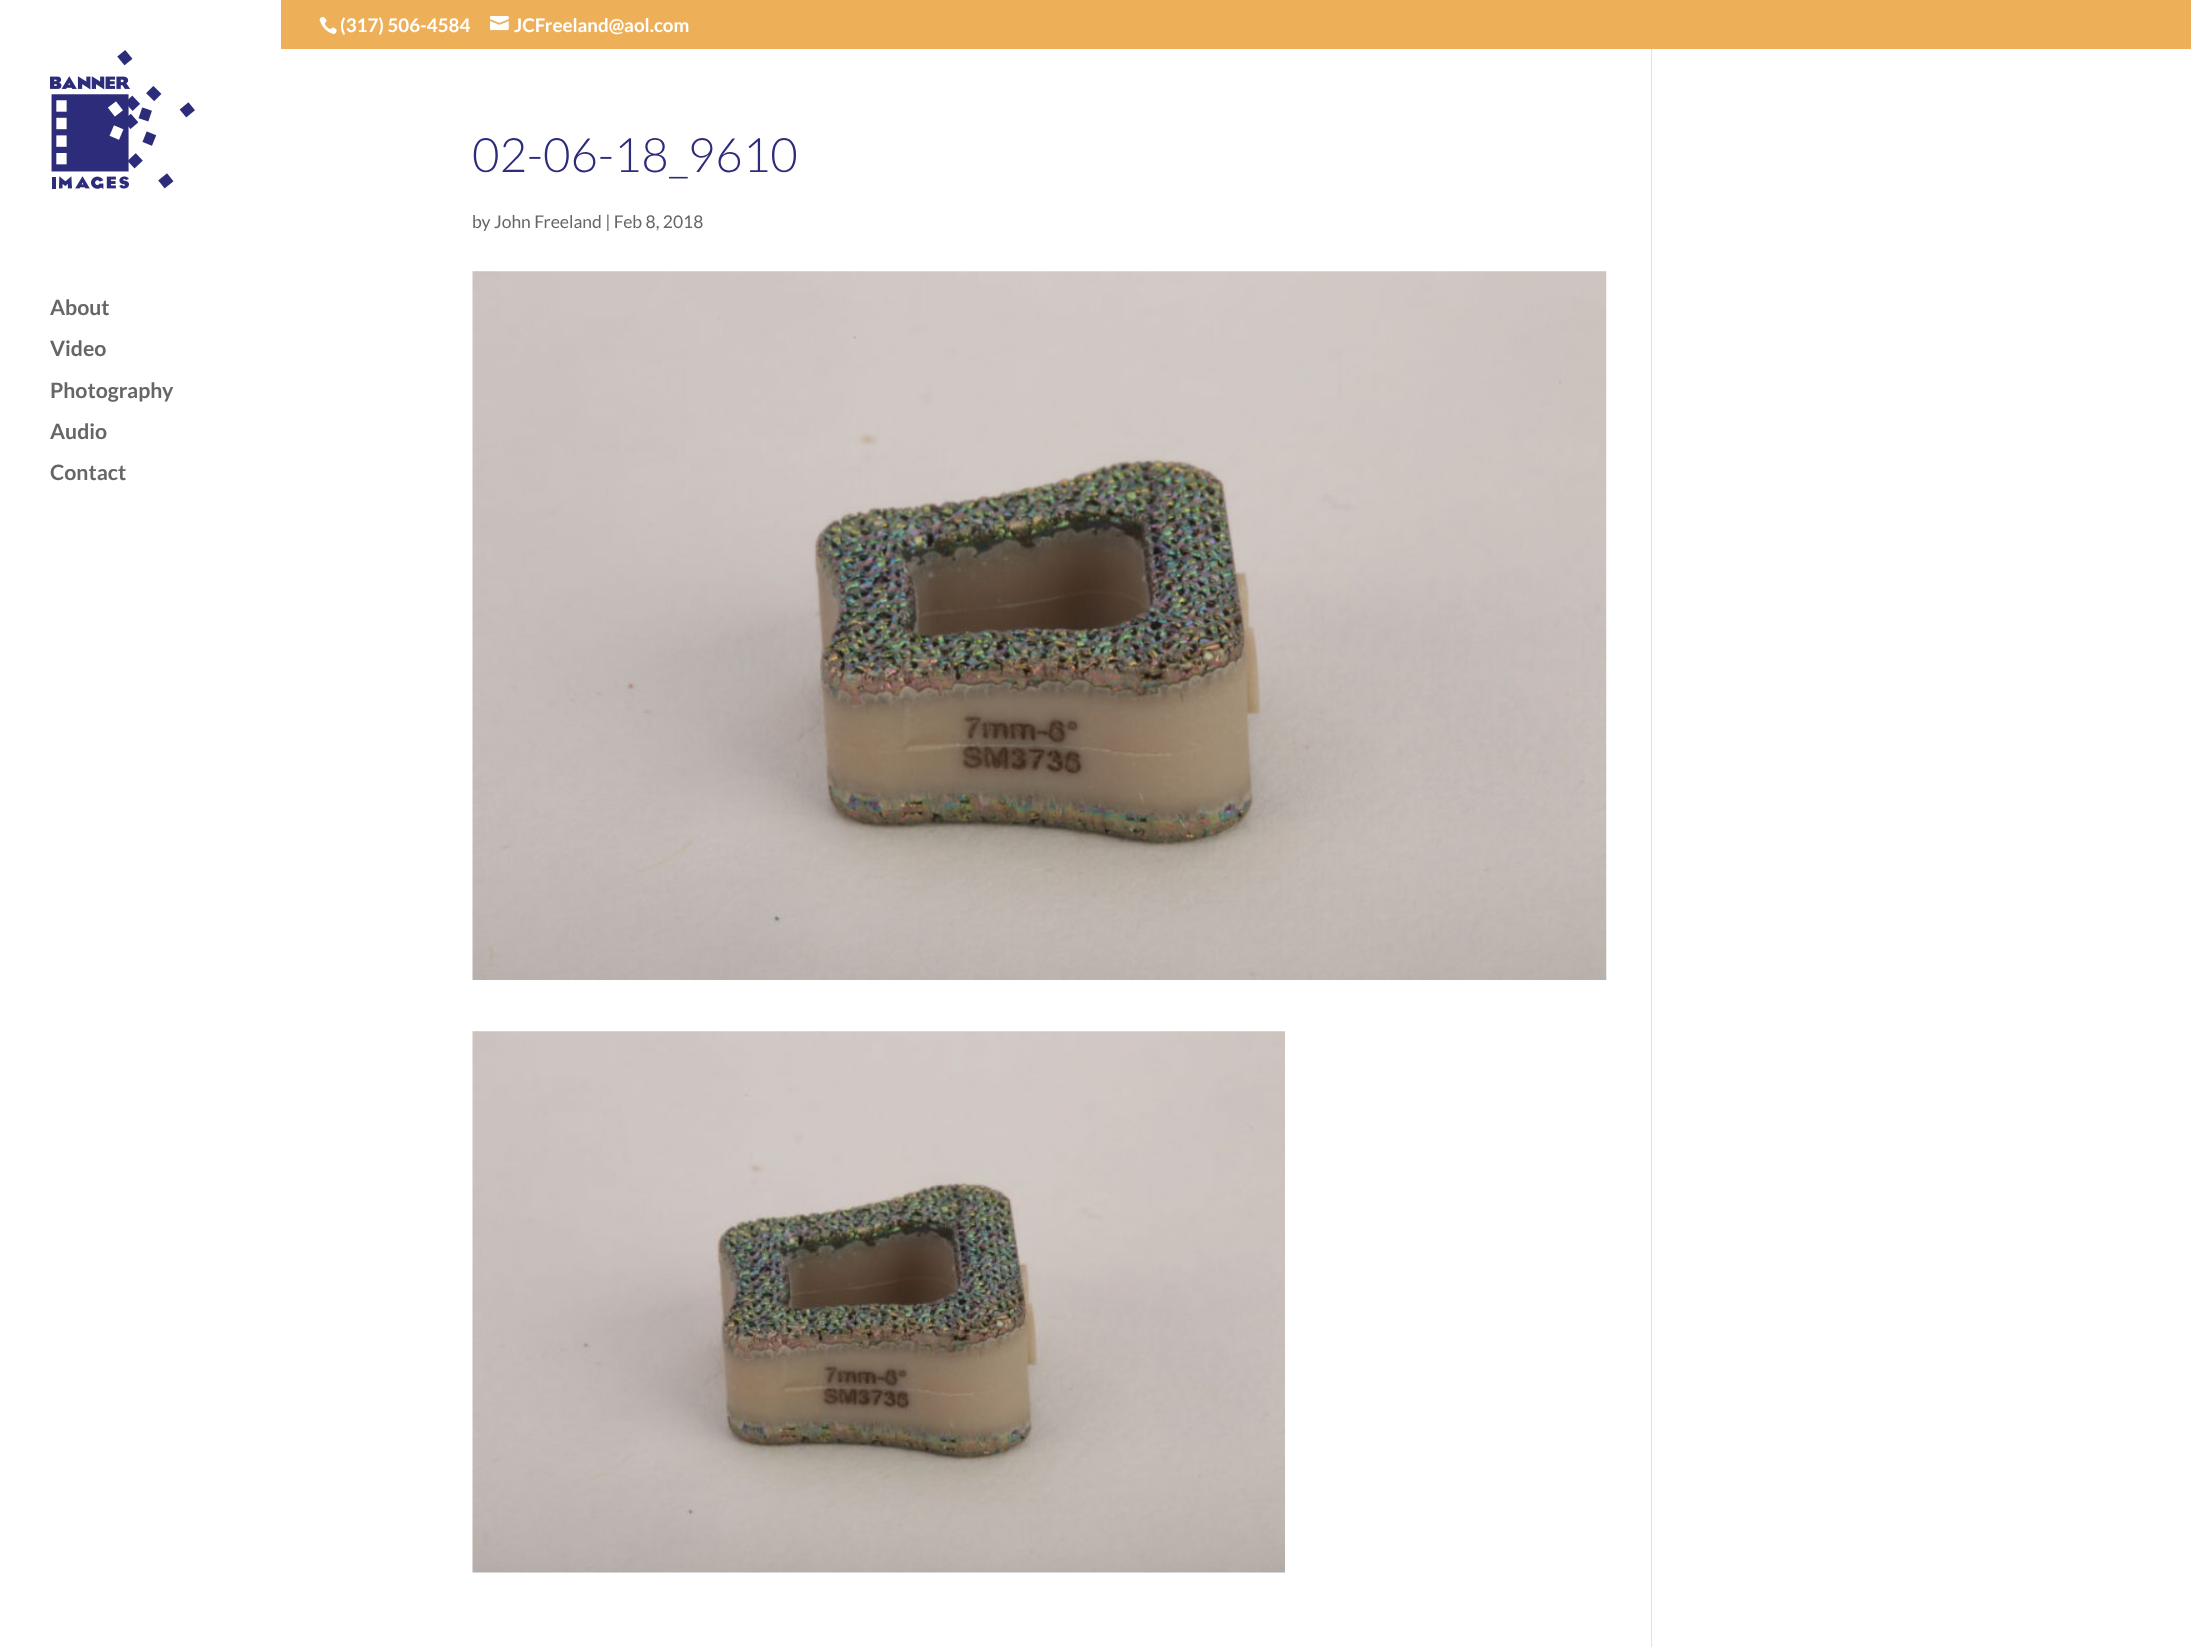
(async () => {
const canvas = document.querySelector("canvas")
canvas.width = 2191
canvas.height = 1647
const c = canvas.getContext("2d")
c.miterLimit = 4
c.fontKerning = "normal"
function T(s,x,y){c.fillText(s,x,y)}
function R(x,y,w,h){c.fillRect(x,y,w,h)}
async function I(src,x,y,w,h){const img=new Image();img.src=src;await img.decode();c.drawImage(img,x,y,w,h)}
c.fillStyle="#fff"
R(0,0,2191,1647)
c.fillStyle="#edb059"
R(281,0,1910,49)
await I("1.png",319,17,18,18)
c.font="bold 18.75px Lato"
c.fillStyle="#fff"
T("(317) 506-4584",340,32)
await I("2.png",490,16,19,15)
T("JCFreeland@aol.com",514,32)
c.font="300 47.5px Lato"
c.fillStyle="#2d2c7a"
T("02-06-18_9610",472,172)
c.font="17.5px Lato"
c.fillStyle="#666"
T("by John Freeland | Feb 8, 2018",472,228)
await I("3.png",472,271,1135,709)
await I("4.png",472,1031,813,542)
c.fillStyle="#e2e2e2"
R(1651,49,1,1598)
await I("5.png",50,50,145,139)
c.font="bold 21.25px Lato"
c.fillStyle="#666"
T("About",50,315)
T("Video",50,356)
T("Photography",50,398)
T("Audio",50,439)
T("Contact",50,480)
})()
